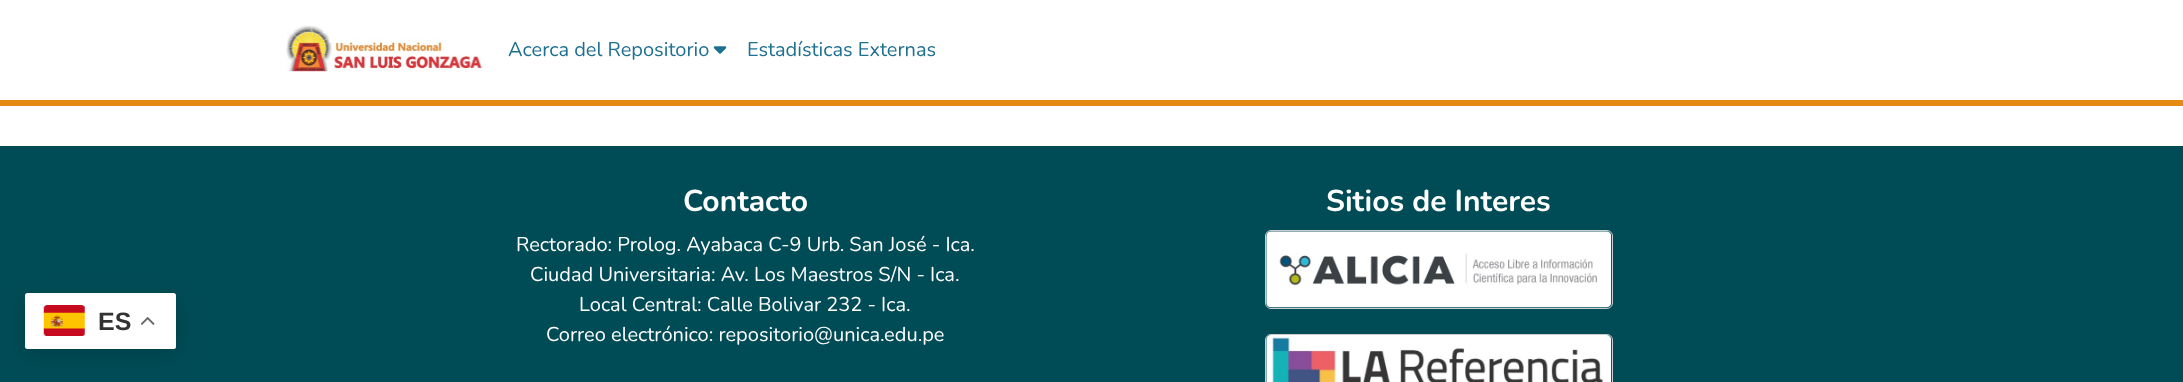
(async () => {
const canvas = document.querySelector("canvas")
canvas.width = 2183
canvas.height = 382
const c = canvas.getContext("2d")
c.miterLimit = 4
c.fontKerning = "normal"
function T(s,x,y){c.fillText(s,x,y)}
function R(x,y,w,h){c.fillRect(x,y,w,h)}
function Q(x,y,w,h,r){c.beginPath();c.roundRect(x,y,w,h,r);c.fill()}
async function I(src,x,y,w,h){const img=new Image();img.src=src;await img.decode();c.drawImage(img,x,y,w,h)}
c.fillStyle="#fff"
R(0,0,2183,382)
c.fillStyle="#004c56"
R(0,146,2183,236)
c.fillStyle="#00000026"
c.filter="blur(9.5px)"
c.beginPath()
c.roundRect(25,299,151,56,2.5)
c.fill()
c.filter="none"
c.fillStyle="#fff"
Q(25,293,151,56,2.5)
await I("1.png",43,305,42,31)
c.font="bold 25px Liberation Sans"
c.fillStyle="#333"
T("ES",98,330)
await I("2.png",141,317,14,8)
c.fillStyle="#e58b14"
R(0,100,2183,6)
await I("3.png",286,25,197,47)
c.font="20px Nunito"
c.fillStyle="#1e6f90"
T("Acerca del Repositorio",508,56)
await I("4.png",713,46,14,8)
T("Estadísticas Externas",747,56)
c.font="bold 30px Nunito"
c.fillStyle="#fff"
T("Contacto",683,211)
c.font="20px Nunito"
T("Rectorado: Prolog. Ayabaca C-9 Urb. San José - Ica.",516,251)
T("Ciudad Universitaria: Av. Los Maestros S/N - Ica.",530,281)
T("Local Central: Calle Bolivar 232 - Ica.",579,311)
T("Correo electrónico: repositorio@unica.edu.pe",546,341)
c.font="bold 30px Nunito"
T("Sitios de Interes",1326,211)
c.beginPath()
c.roundRect(1265.5,230.5,347,78,5.5)
c.strokeStyle="#ccc"
c.stroke()
await I("5.png",1266,231,346,77)
c.beginPath()
c.roundRect(1265.5,334.5,347,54,5.5)
c.stroke()
await I("6.png",1266,335,346,47)
})()
